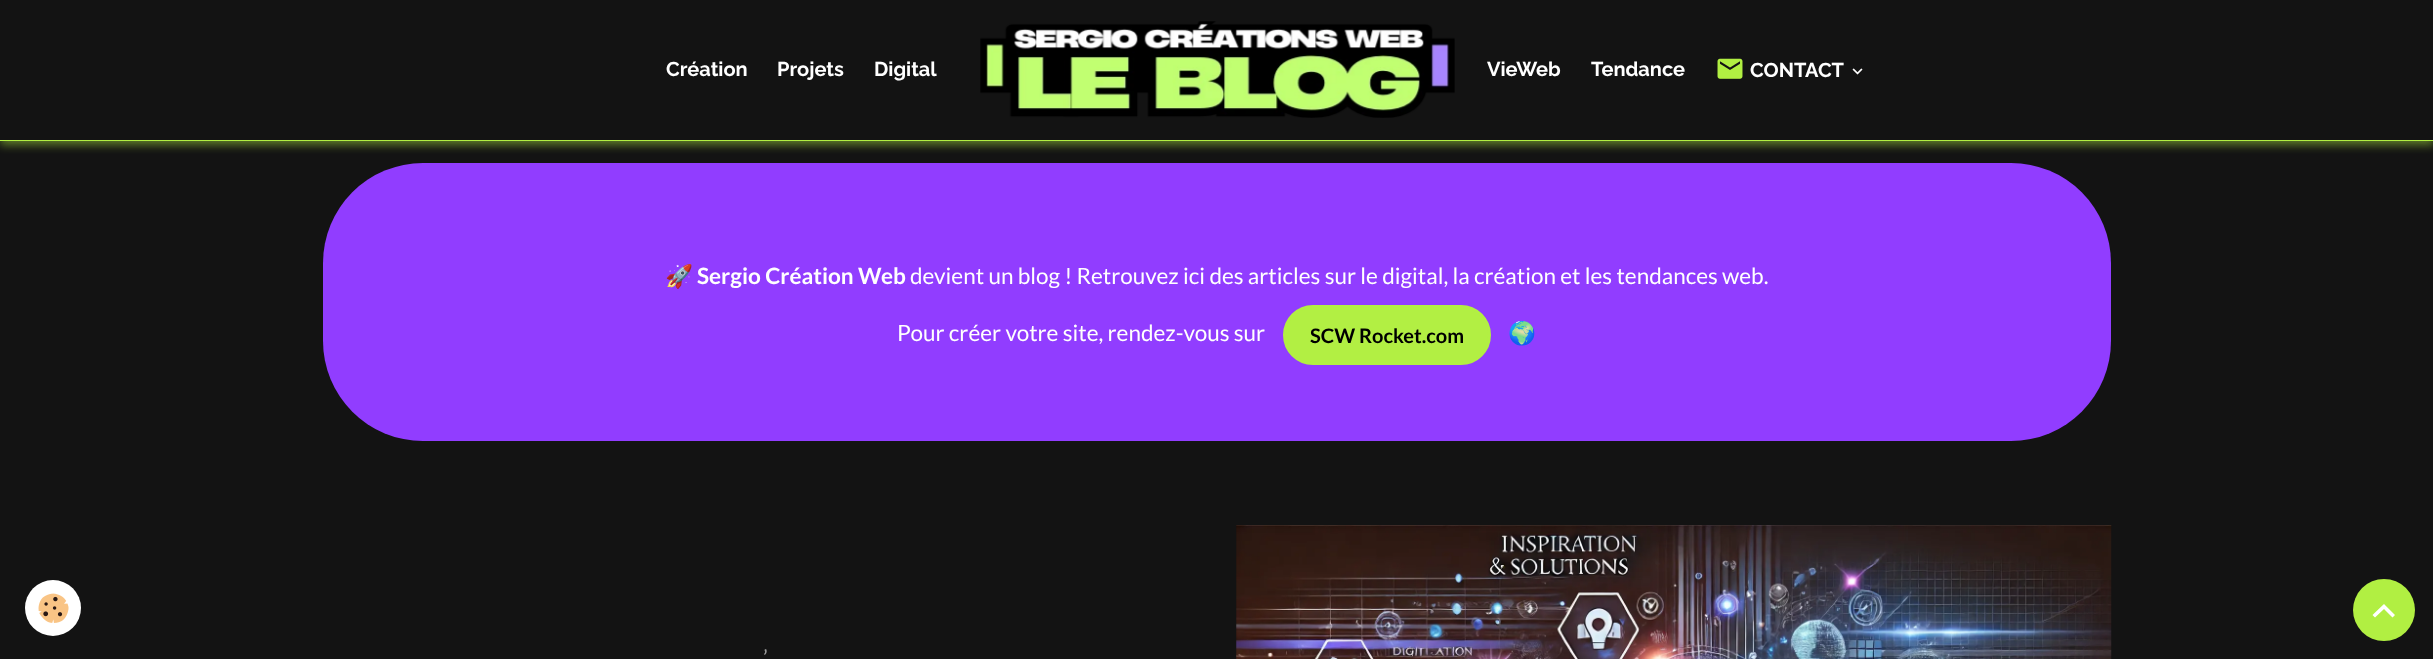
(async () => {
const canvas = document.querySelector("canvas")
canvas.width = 2433
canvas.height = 659
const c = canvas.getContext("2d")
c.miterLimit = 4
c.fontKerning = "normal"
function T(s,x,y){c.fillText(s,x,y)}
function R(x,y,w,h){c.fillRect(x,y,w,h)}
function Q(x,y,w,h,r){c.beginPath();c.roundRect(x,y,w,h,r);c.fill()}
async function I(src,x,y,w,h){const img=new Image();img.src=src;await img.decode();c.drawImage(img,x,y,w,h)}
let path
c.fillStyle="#131313"
R(0,0,2433,659)
c.save()
c.beginPath()
c.rect(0,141,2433,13)
c.clip()
c.fillStyle="#b1ef427d"
c.filter="blur(5px)"
c.beginPath()
c.rect(0,4,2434,141)
c.fill()
c.filter="none"
c.restore()
c.fillStyle="#b1ef42"
R(0,140,2433,1)
c.font="bold 20px Raleway"
c.fillStyle="#fff"
T("Création",666,76)
T("Projets",777,76)
T("Digital",874,76)
await I("1.png",980,21,475,97)
T("VieWeb",1487,76)
T("Tendance",1591,76)
await I("2.png",1717,58,26,21)
T("CONTACT",1750,77)
await I("3.png",1852,68,11,7)
c.beginPath()
c.arc(53,608,28,0,7)
c.fill()
await I("4.png",38,593,31,30)
c.fillStyle="#913dff"
Q(323,163,1788,278,100)
c.font="22.5px Noto Color Emoji"
c.fillStyle="#fff"
T("🚀",665,284)
c.font="bold 22.5px Lato"
T("Sergio Création Web",697,284)
c.font="22.5px Lato"
T("devient un blog ! Retrouvez ici des articles sur le digital, la création et les tendances web.",910,284)
T("Pour créer votre site, rendez-vous sur",897,341)
c.fillStyle="#b2ef43"
c.beginPath()
c.roundRect(1284.5,306.5,205,57,28.5)
c.fill()
c.strokeStyle="#b2ef43"
c.lineWidth=3
c.stroke()
c.font="bold 20px Lato"
c.fillStyle="#000"
T("SCW Rocket.com",1310,343)
c.font="22.5px Noto Color Emoji"
c.fillStyle="#fff"
T("🌍",1508,341)
c.wordSpacing="1px"
c.font="22.5px Lato"
c.fillStyle="#999"
T("’",763,666)
await I("5.png",1236,525,876,134)
c.fillStyle="#b1ef42"
c.beginPath()
c.arc(2384,610,31,0,7)
c.fill()
c.fillStyle="#fff"
path = new Path2D("M2384 604l11 11l-2.5 2.5l-8.5-8.5l-9 8.5l-2.5-2.5z")
c.fill(path)
})()
